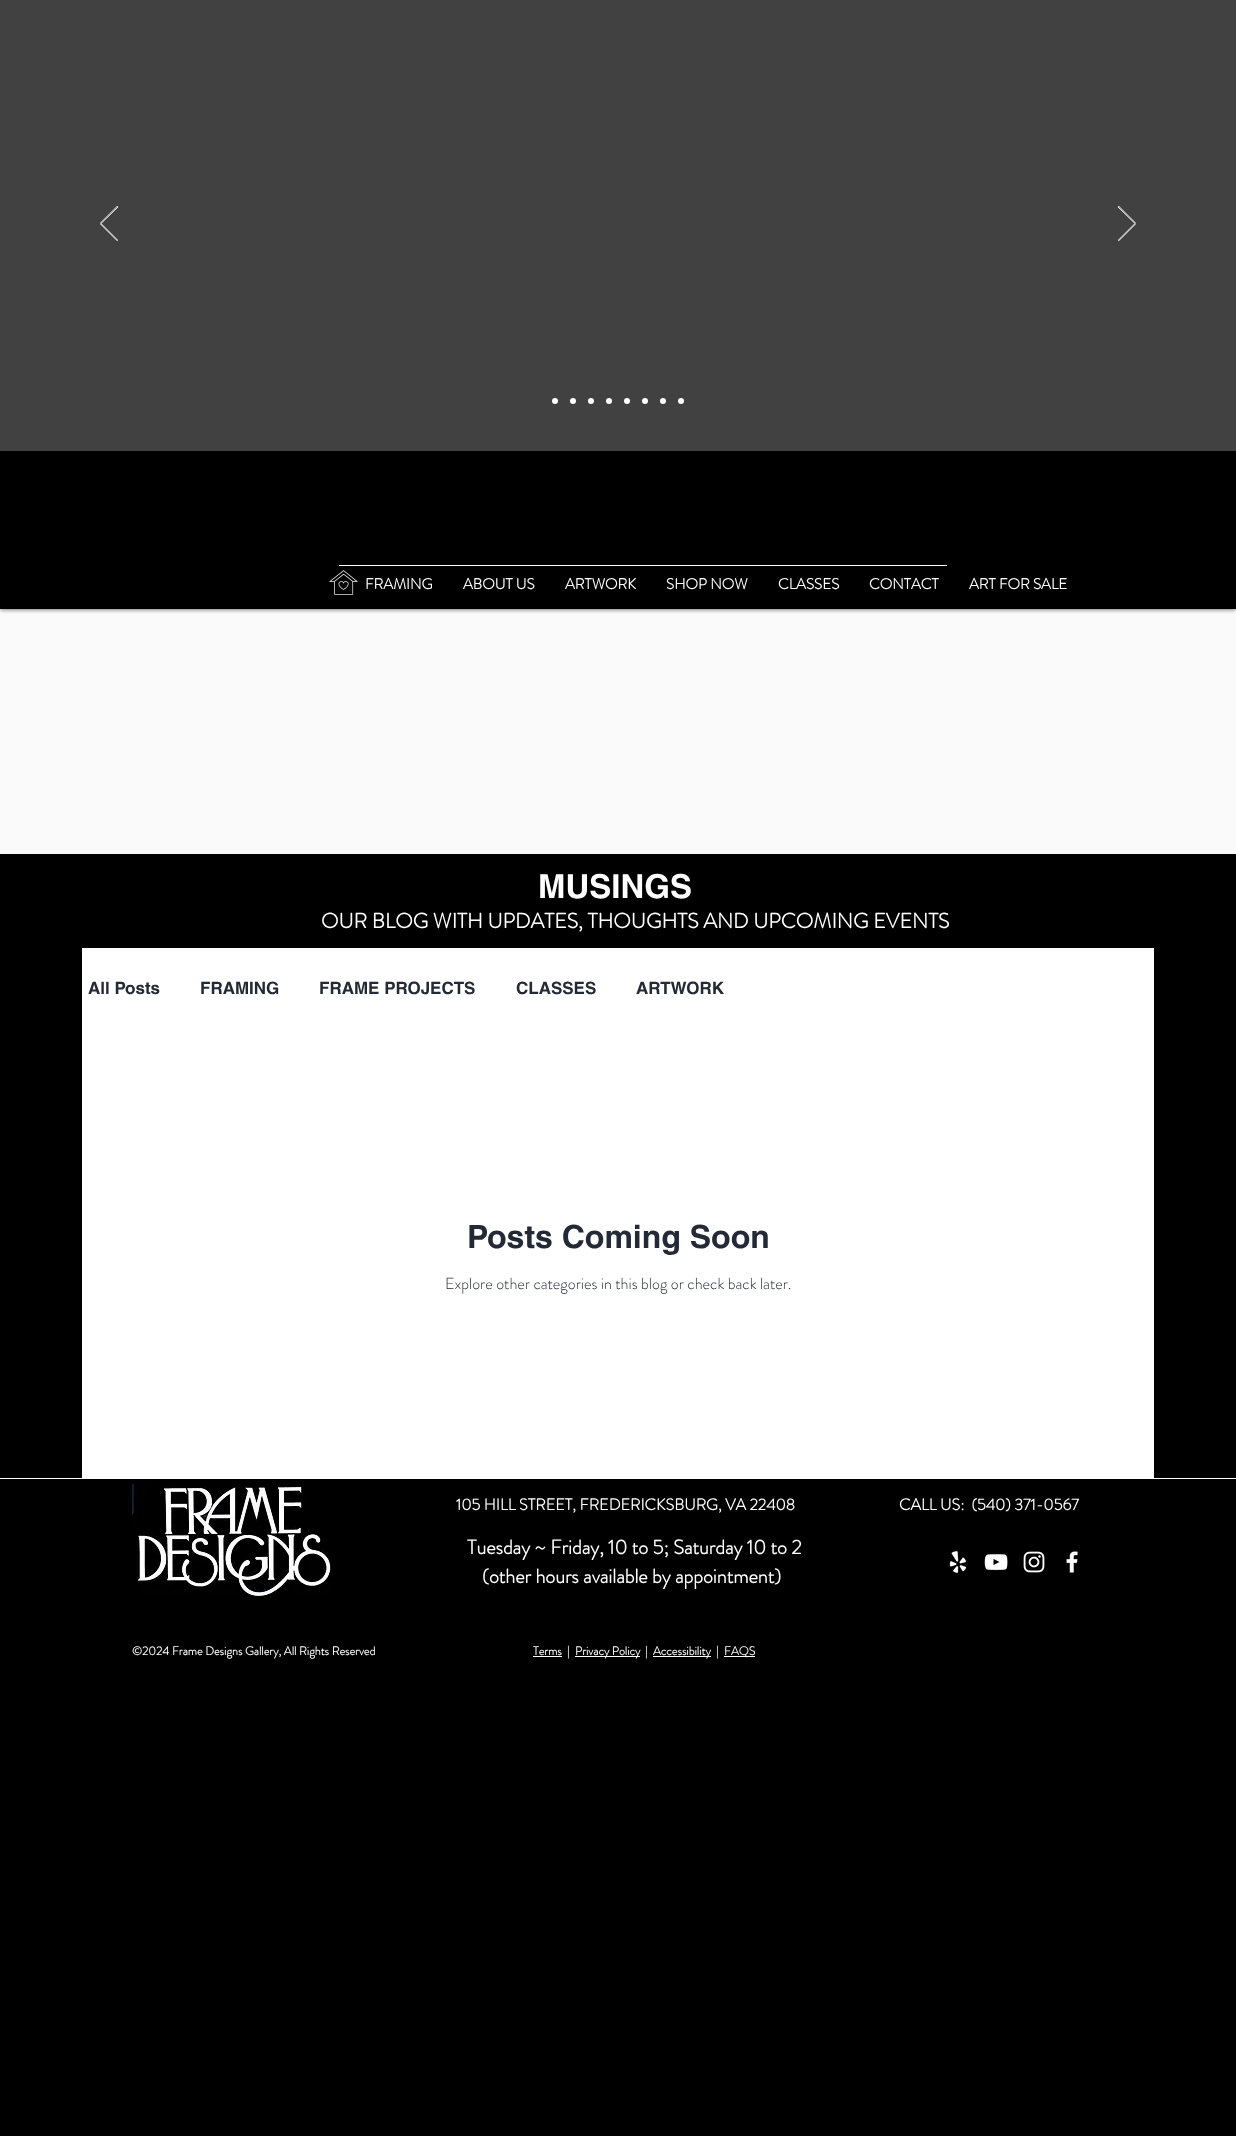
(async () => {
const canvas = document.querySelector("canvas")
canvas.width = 1236
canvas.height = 2136
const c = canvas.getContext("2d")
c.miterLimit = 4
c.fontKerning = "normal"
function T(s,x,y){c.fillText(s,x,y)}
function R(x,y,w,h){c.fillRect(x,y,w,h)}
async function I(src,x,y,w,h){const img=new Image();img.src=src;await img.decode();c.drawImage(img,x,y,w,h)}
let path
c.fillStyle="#000"
R(0,0,1236,2136)
c.fillStyle="#fafafa"
R(0,609,1236,245)
c.save()
c.beginPath()
c.rect(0,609,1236,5)
c.clip()
c.fillStyle="#000000b3"
c.filter="blur(2.5px)"
c.beginPath()
c.rect(0,0,1236,609)
c.fill()
c.filter="none"
c.restore()
c.fillStyle="#414141"
R(0,0,1236,451)
c.save()
c.beginPath()
c.rect(100,206,18,36)
c.clip()
path = new Path2D("M117.5 241l-17.5-17.5l17.5-17.5l.5 1l-17 16.5l17 17z")
c.strokeStyle="#fff"
c.lineWidth=0.9
c.stroke(path)
c.restore()
c.save()
c.beginPath()
c.rect(1118,206,18,36)
c.clip()
path = new Path2D("M1118.5 241l17.5-17.5l-17.5-17.5l-.5 1l17 16.5l-17 17z")
c.strokeStyle="#fff"
c.lineWidth=0.9
c.stroke(path)
c.restore()
c.fillStyle="#fff"
c.beginPath()
c.arc(555,401,3,0,7)
c.fill()
c.beginPath()
c.arc(573,401,3,0,7)
c.fill()
c.beginPath()
c.arc(591,401,3,0,7)
c.fill()
c.beginPath()
c.arc(609,401,3,0,7)
c.fill()
c.beginPath()
c.arc(627,401,3,0,7)
c.fill()
c.beginPath()
c.arc(645,401,3,0,7)
c.fill()
c.beginPath()
c.arc(663,401,3,0,7)
c.fill()
c.beginPath()
c.arc(681,401,3,0,7)
c.fill()
R(339,565,608,1)
await I("1.png",329,570,29,25)
c.font="bold 15px 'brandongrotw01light'"
T("FRAMING",365,589)
T("ABOUT US",463,589)
T("ARTWORK",565,589)
T("SHOP NOW",666,589)
T("CLASSES",778,589)
T("CONTACT",869,589)
T("ART FOR SALE",969,589)
c.font="bold 33px helvetica"
T("MUSINGS",538,898)
c.font="bold 21px 'brandongrotw01light'"
T("OUR BLOG WITH UPDATES, THOUGHTS AND UPCOMING EVENTS",321,928)
R(82,948,1072,530)
c.font="bold 17px helvetica"
c.fillStyle="#242a35"
T("All Posts",88,994)
T("FRAMING",200,994)
T("FRAME PROJECTS",319,994)
T("CLASSES",516,994)
T("ARTWORK",636,994)
c.font="bold 32px helvetica"
T("Posts Coming Soon",467,1248)
c.font="300 16px 'brandongrotw01light'"
T("Explore other categories in this blog or check back later.",445,1289)
c.fillStyle="#fff"
R(0,1478,1236,1)
await I("2.png",132,1482,200,116)
c.font="bold 16px 'brandongrotw01light'"
T("105 HILL STREET, FREDERICKSBURG, VA 22408",456,1510)
T("CALL US:  (540) 371-0567",899,1510)
c.font="bold 20px 'brandongrotw01light'"
T("Tuesday ~ Friday, 10 to 5; Saturday 10 to 2",467,1554)
T("(other hours available by appointment)",482,1583)
await I("3.png",949,1551,18,22)
await I("4.png",984,1554,24,17)
await I("5.png",1023,1551,22,22)
await I("6.png",1066,1551,12,22)
c.font="bold 12px 'brandongrotw01light'"
T("©2024 Frame Designs Gallery, All Rights Reserved",132,1655)
T("Terms",533,1655)
R(533,1656,29,1)
T("|",567,1655)
R(575,1656,65,1)
T("Privacy Policy",575,1655)
T("|",645,1655)
R(653,1656,58,1)
T("Accessibility",653,1655)
T("|",716,1655)
R(724,1656,31,1)
T("FAQS",724,1655)
})()
